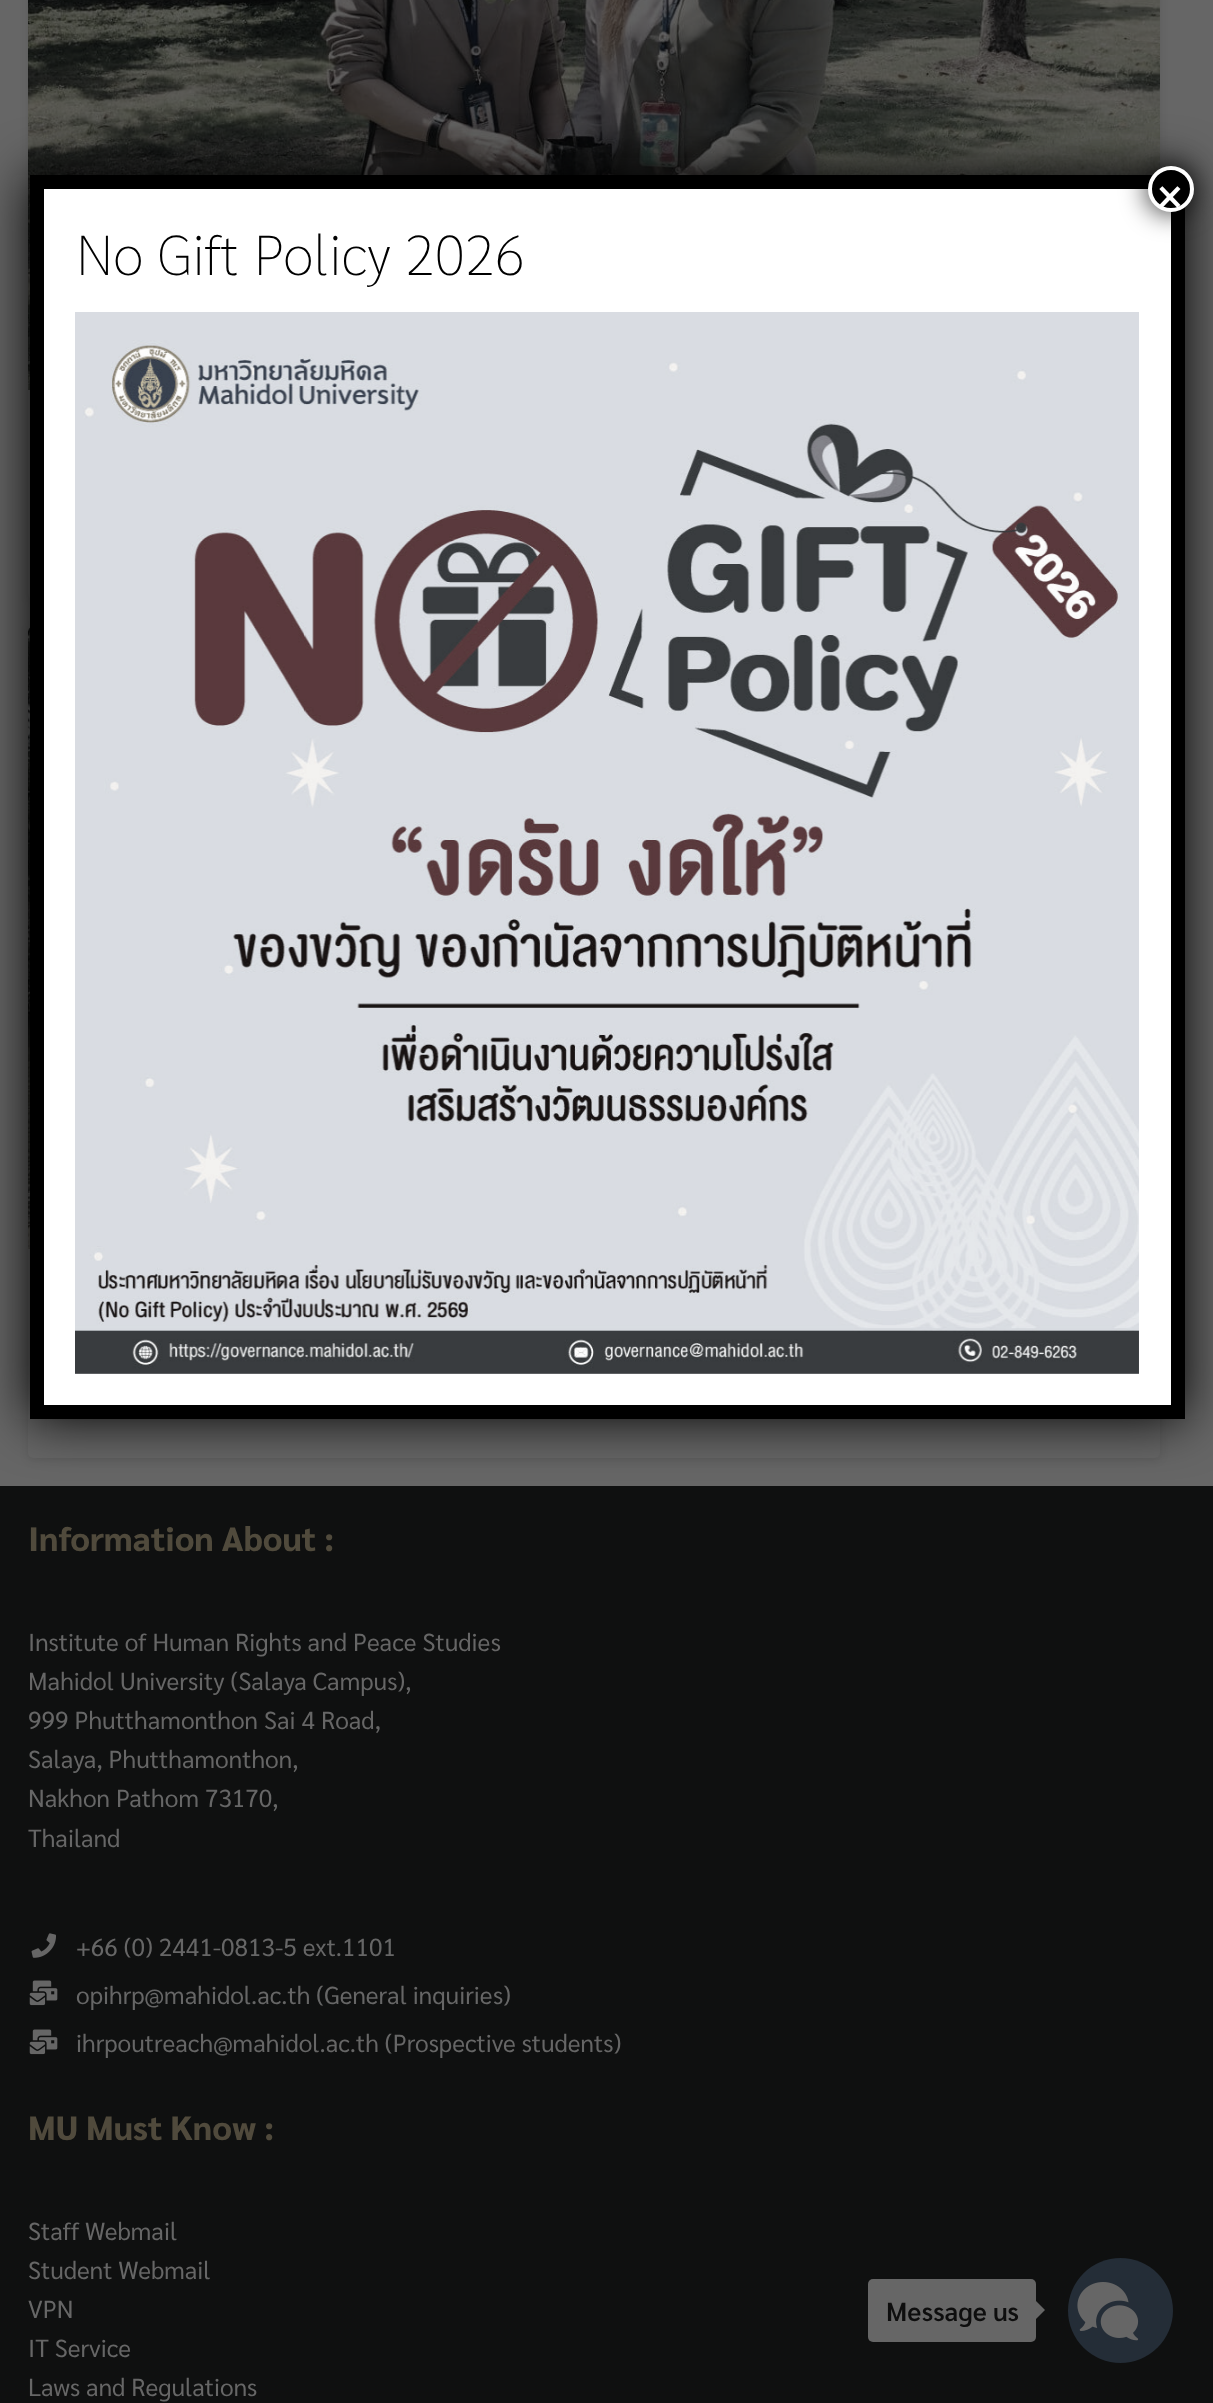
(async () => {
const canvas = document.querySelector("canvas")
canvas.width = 1213
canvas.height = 2403
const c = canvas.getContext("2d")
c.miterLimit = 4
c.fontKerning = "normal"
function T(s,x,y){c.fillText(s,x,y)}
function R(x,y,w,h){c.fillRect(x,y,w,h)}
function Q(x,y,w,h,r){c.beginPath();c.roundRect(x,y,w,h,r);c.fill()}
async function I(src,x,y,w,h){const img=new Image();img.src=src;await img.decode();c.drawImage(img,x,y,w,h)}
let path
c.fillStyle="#666"
R(0,0,1213,2403)
c.fillStyle="#0000001a"
c.filter="blur(4.5px)"
c.beginPath()
c.roundRect(28,-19,1132,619,5)
c.fill()
c.filter="none"
c.fillStyle="#666"
Q(28,-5,1132,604,5)
await I("2.png",28,0,1132,390)
c.fillStyle="#0000001a"
c.filter="blur(4.5px)"
c.beginPath()
c.roundRect(28,628,1132,832,5)
c.fill()
c.filter="none"
c.fillStyle="#666"
Q(28,627,1132,831,5)
await I("3.png",28,627,2,622)
c.fillStyle="#0f1010"
R(0,1486,1213,917)
c.fillStyle="#020202"
c.filter="blur(26px)"
c.beginPath()
c.roundRect(30,175,1155,1244,5)
c.fill()
c.filter="none"
c.fillStyle="#fff"
R(44,189,1127,1216)
path = new Path2D("M37 182h1141v1230h-1141z")
c.strokeStyle="#000"
c.lineWidth=14
c.stroke(path)
c.fillStyle="#020202bf"
c.filter="blur(13px)"
c.beginPath()
c.roundRect(1146,165,49,49,24.5)
c.fill()
c.filter="none"
c.fillStyle="#000"
c.beginPath()
c.arc(1171,189,21,0,7)
c.fill()
c.strokeStyle="#fff"
c.lineWidth=4
c.stroke()
c.font="600 42px Sarabun"
c.fillStyle="#fff"
T("×",1157,208)
c.font="100 56px Sarabun"
c.fillStyle="#000"
T("No Gift Policy 2026",76,275)
await I("1.png",75,312,1064,1062)
c.font="800 33.75px Sarabun"
c.fillStyle="#504a3c"
T("Information About :",28,1551)
c.font="24.5px Sarabun"
c.fillStyle="#666"
T("Institute of Human Rights and Peace Studies",28,1651)
T("Mahidol University (Salaya Campus),",28,1690)
T("999 Phutthamonthon Sai 4 Road,",28,1729)
T("Salaya, Phutthamonthon,",28,1768)
T("Nakhon Pathom 73170,",28,1807)
T("Thailand",28,1847)
await I("4.png",31,1933,25,25)
T("+66 (0) 2441-0813-5 ext.1101",76,1956)
await I("5.png",29,1980,29,26)
T("opihrp@mahidol.ac.th (General inquiries)",76,2004)
await I("5.png",29,2029,29,26)
T("ihrpoutreach@mahidol.ac.th (Prospective students)",76,2052)
c.font="800 33.75px Sarabun"
c.fillStyle="#504a3c"
T("MU Must Know :",28,2140)
c.font="24.5px Sarabun"
c.fillStyle="#666"
T("Staff Webmail",28,2240)
T("Student Webmail",28,2279)
T("VPN",28,2318)
T("IT Service",28,2357)
T("Laws and Regulations",28,2396)
c.fillStyle="#242d37"
c.beginPath()
c.arc(1120.5,2310.5,52.5,0,7)
c.fill()
c.fillStyle="#666"
Q(868,2279,168,63,5)
c.font="600 26.25px Sarabun"
c.fillStyle="#0e0e0e"
T("Message us",886,2321)
c.fillStyle="#666"
path = new Path2D("M1036 2319v-18l9 9z")
c.fill(path)
await I("6.png",1077,2282,62,59)
})()
